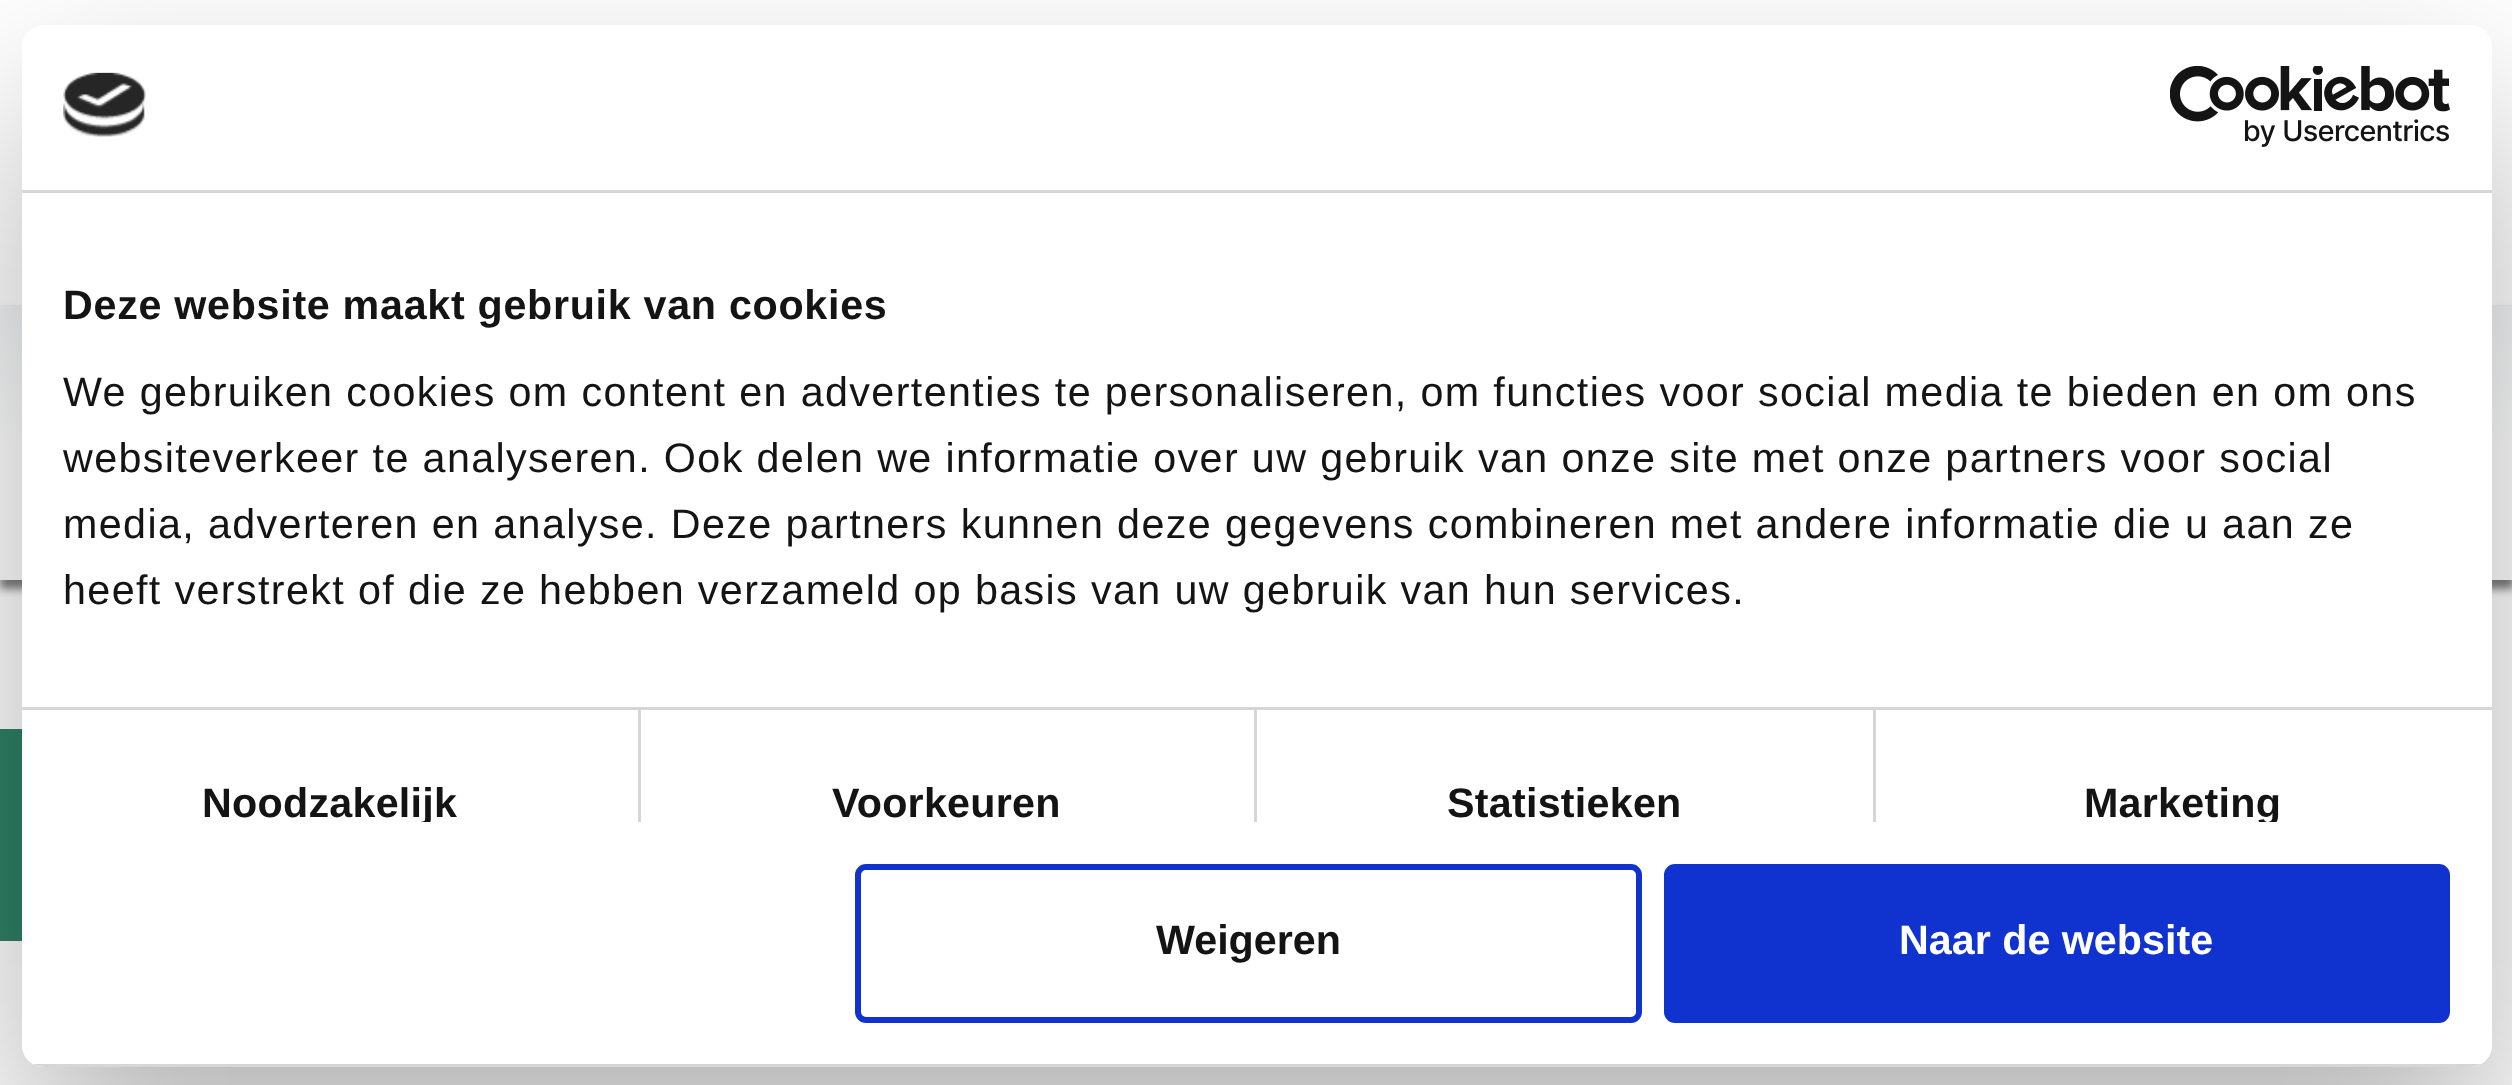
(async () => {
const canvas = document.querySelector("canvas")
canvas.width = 2512
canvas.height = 1085
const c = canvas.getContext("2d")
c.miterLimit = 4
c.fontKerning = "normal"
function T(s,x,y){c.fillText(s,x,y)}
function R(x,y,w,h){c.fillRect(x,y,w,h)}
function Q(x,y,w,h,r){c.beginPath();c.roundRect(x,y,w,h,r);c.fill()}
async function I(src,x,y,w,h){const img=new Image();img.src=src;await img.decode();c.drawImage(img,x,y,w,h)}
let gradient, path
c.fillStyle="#fff"
R(0,0,2512,1085)
c.fillStyle="#00000080"
c.filter="blur(4px)"
c.beginPath()
c.rect(0,314,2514,275)
c.fill()
c.filter="none"
gradient = c.createLinearGradient(1257,305,1257,580)
gradient.addColorStop(0,"#f3f5f6")
gradient.addColorStop(.52,"#fff")
c.fillStyle = gradient
R(0,305,2512,275)
gradient = c.createLinearGradient(-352,835,1023,835)
gradient.addColorStop(0,"#408c73")
gradient.addColorStop(1,"#064")
c.fillStyle = gradient
R(0,729,22,212)
c.save()
path = new Path2D("M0 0h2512v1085h-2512zm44 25h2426c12 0 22 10 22 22v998c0 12-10 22-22 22h-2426c-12 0-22-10-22-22v-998c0-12 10-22 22-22z")
c.clip(path,"evenodd")
c.fillStyle="#0000004d"
c.filter="blur(93.5px)"
c.beginPath()
c.roundRect(22,113,2470,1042,22)
c.fill()
c.filter="none"
c.restore()
c.fillStyle="#fff"
Q(22,25,2470,1042,22)
c.fillStyle="#d6d6d6"
R(22,190,2470,3)
await I("1.png",63,72,83,65)
await I("2.png",2170,66,280,81)
R(22,707,2470,3)
c.letterSpacing="0.7px"
c.font="bold 41.25px Liberation Sans"
c.fillStyle="#141414"
T("Deze website maakt gebruik van cookies",63,319)
c.letterSpacing="1.38px"
c.font="41.25px Liberation Sans"
T("We gebruiken cookies om content en advertenties te personaliseren, om functies voor social media te bieden en om ons",63,406)
T("websiteverkeer te analyseren. Ook delen we informatie over uw gebruik van onze site met onze partners voor social",63,472)
T("media, adverteren en analyse. Deze partners kunnen deze gegevens combineren met andere informatie die u aan ze",63,538)
T("heeft verstrekt of die ze hebben verzameld op basis van uw gebruik van hun services.",63,604)
c.fillStyle="#d6d6d6"
R(638,710,3,112)
c.save()
c.beginPath()
c.rect(22,193,2470,629)
c.clip()
c.letterSpacing="0.25px"
c.font="bold 41.25px Liberation Sans"
c.fillStyle="#141414"
T("Noodzakelijk",202,817)
c.restore()
R(1254,710,3,112)
c.letterSpacing="0.25px"
c.font="bold 41.25px Liberation Sans"
c.fillStyle="#141414"
T("Voorkeuren",832,817)
c.fillStyle="#d6d6d6"
R(1873,710,3,112)
c.fillStyle="#141414"
T("Statistieken",1447,817)
c.save()
c.beginPath()
c.rect(22,193,2470,629)
c.clip()
T("Marketing",2084,817)
c.restore()
c.save()
c.beginPath()
c.roundRect(22,25,2470,1042,22)
c.clip()
c.fillStyle="#d6d6d6"
R(33,1064,2448,3)
c.restore()
c.beginPath()
c.roundRect(858,867,781,153,8)
c.strokeStyle="#1032cf"
c.lineWidth=6
c.stroke()
c.letterSpacing="0px"
T("Weigeren",1156,954)
c.fillStyle="#1032cf"
c.beginPath()
c.roundRect(1667,867,780,153,8)
c.fill()
c.stroke()
c.fillStyle="#fff"
T("Naar de website",1899,954)
})()
